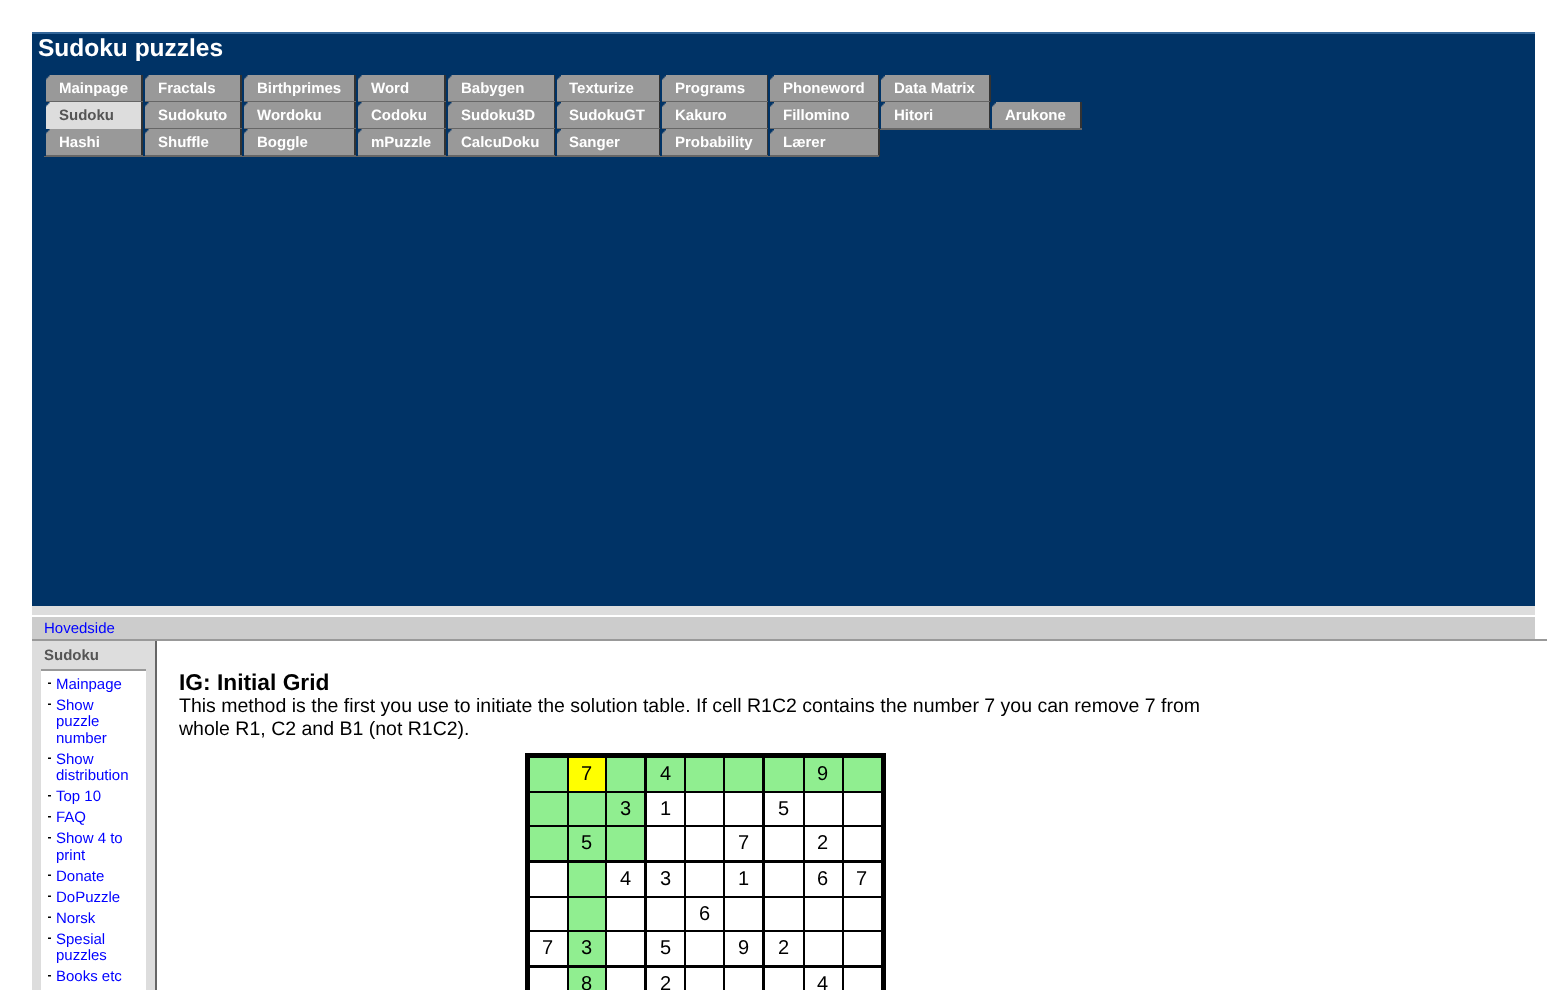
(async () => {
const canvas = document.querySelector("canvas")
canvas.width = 1565
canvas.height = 990
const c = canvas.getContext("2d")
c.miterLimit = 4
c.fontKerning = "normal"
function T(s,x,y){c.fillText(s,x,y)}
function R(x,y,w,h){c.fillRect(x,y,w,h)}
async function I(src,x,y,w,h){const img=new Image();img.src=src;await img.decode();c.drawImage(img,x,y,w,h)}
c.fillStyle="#fff"
R(0,0,1565,990)
c.fillStyle="#036"
R(32,34,1503,572)
c.fillStyle="#369"
R(32,32,1503,2)
c.font="bold 24.5px Liberation Sans"
c.fillStyle="#fff"
T("Sudoku puzzles",38,56)
c.fillStyle="#ddd"
R(32,606,1503,9)
c.fillStyle="#999"
R(46,75,95,26)
await I("1.png",46,75,4,5)
c.fillStyle="#333"
R(141,75,2,81)
c.fillStyle="#666"
R(44,101,99,1)
c.fillStyle="#036"
R(44,101,2,1)
c.font="bold 15px Liberation Sans"
c.fillStyle="#fff"
T("Mainpage",59,93)
c.fillStyle="#999"
R(145,75,95,26)
await I("1.png",145,75,4,5)
c.fillStyle="#333"
R(240,75,2,81)
c.fillStyle="#666"
R(143,101,99,1)
c.fillStyle="#036"
R(143,101,2,1)
c.fillStyle="#fff"
T("Fractals",158,93)
c.fillStyle="#999"
R(244,75,110,26)
await I("1.png",244,75,4,5)
c.fillStyle="#333"
R(354,75,2,81)
c.fillStyle="#666"
R(242,101,114,1)
c.fillStyle="#036"
R(242,101,2,1)
c.fillStyle="#fff"
T("Birthprimes",257,93)
c.fillStyle="#999"
R(358,75,86,26)
await I("2.png",358,75,4,5)
c.fillStyle="#333"
R(444,75,2,81)
c.fillStyle="#666"
R(356,101,90,1)
c.fillStyle="#036"
R(356,101,2,1)
c.fillStyle="#fff"
T("Word",371,93)
c.fillStyle="#999"
R(448,75,106,26)
await I("2.png",448,75,4,5)
c.fillStyle="#333"
R(554,75,1,81)
c.fillStyle="#666"
R(446,101,109,1)
c.fillStyle="#036"
R(446,101,2,1)
c.fillStyle="#fff"
T("Babygen",461,93)
c.fillStyle="#999"
R(557,75,102,26)
await I("3.png",557,75,4,5)
c.fillStyle="#333"
R(659,75,1,81)
c.fillStyle="#666"
R(555,101,105,1)
c.fillStyle="#036"
R(555,101,2,1)
c.fillStyle="#fff"
T("Texturize",569,93)
c.fillStyle="#999"
R(662,75,105,26)
await I("3.png",662,75,4,5)
c.fillStyle="#333"
R(767,75,1,81)
c.fillStyle="#666"
R(660,101,108,1)
c.fillStyle="#036"
R(660,101,2,1)
c.fillStyle="#fff"
T("Programs",675,93)
c.fillStyle="#999"
R(770,75,108,26)
await I("4.png",770,75,4,5)
c.fillStyle="#333"
R(878,75,1,54)
c.fillStyle="#666"
R(768,101,111,1)
c.fillStyle="#036"
R(768,101,2,1)
c.fillStyle="#fff"
T("Phoneword",783,93)
c.fillStyle="#999"
R(881,75,108,26)
await I("4.png",881,75,4,5)
c.fillStyle="#333"
R(989,75,2,27)
c.fillStyle="#666"
R(879,101,111,1)
c.fillStyle="#036"
R(879,101,2,1)
c.fillStyle="#fff"
T("Data Matrix",894,93)
c.fillStyle="#ddd"
R(46,102,95,27)
await I("5.png",46,102,4,5)
c.fillStyle="#555"
T("Sudoku",59,120)
c.fillStyle="#999"
R(145,102,95,26)
await I("1.png",145,102,4,5)
c.fillStyle="#666"
R(143,128,736,1)
c.fillStyle="#036"
R(143,128,2,1)
c.fillStyle="#fff"
T("Sudokuto",158,120)
c.fillStyle="#999"
R(244,102,110,26)
await I("1.png",244,102,4,5)
c.fillStyle="#036"
R(242,128,2,1)
c.fillStyle="#fff"
T("Wordoku",257,120)
c.fillStyle="#999"
R(358,102,86,26)
await I("2.png",358,102,4,5)
c.fillStyle="#036"
R(356,128,2,1)
c.fillStyle="#fff"
T("Codoku",371,120)
c.fillStyle="#999"
R(448,102,106,26)
await I("2.png",448,102,4,5)
c.fillStyle="#036"
R(446,128,2,1)
c.fillStyle="#fff"
T("Sudoku3D",461,120)
c.fillStyle="#999"
R(557,102,102,26)
await I("3.png",557,102,4,5)
c.fillStyle="#036"
R(555,128,2,1)
c.fillStyle="#fff"
T("SudokuGT",569,120)
c.fillStyle="#999"
R(662,102,105,26)
await I("3.png",662,102,4,5)
c.fillStyle="#036"
R(660,128,2,1)
c.fillStyle="#fff"
T("Kakuro",675,120)
c.fillStyle="#999"
R(770,102,108,26)
await I("4.png",770,102,4,5)
c.fillStyle="#036"
R(768,128,2,1)
c.fillStyle="#fff"
T("Fillomino",783,120)
c.fillStyle="#999"
R(881,102,108,26)
await I("4.png",881,102,4,5)
c.fillStyle="#333"
R(989,102,1,27)
c.fillStyle="#666"
R(879,128,111,2)
c.fillStyle="#036"
R(879,128,2,1)
c.fillStyle="#fff"
T("Hitori",894,120)
c.fillStyle="#999"
R(992,102,88,26)
await I("4.png",992,102,4,5)
c.fillStyle="#333"
R(1080,102,2,27)
c.fillStyle="#666"
R(990,128,92,2)
c.fillStyle="#036"
R(990,128,2,1)
c.fillStyle="#fff"
T("Arukone",1005,120)
c.fillStyle="#999"
R(46,129,95,26)
await I("1.png",46,129,4,5)
c.fillStyle="#666"
R(44,155,724,2)
c.fillStyle="#036"
R(44,155,2,1)
c.fillStyle="#fff"
T("Hashi",59,147)
c.fillStyle="#999"
R(145,129,95,26)
await I("1.png",145,129,4,5)
c.fillStyle="#036"
R(143,155,2,1)
c.fillStyle="#fff"
T("Shuffle",158,147)
c.fillStyle="#999"
R(244,129,110,26)
await I("1.png",244,129,4,5)
c.fillStyle="#036"
R(242,155,2,1)
c.fillStyle="#fff"
T("Boggle",257,147)
c.fillStyle="#999"
R(358,129,86,26)
await I("2.png",358,129,4,5)
c.fillStyle="#036"
R(356,155,2,1)
c.fillStyle="#fff"
T("mPuzzle",371,147)
c.fillStyle="#999"
R(448,129,106,26)
await I("2.png",448,129,4,5)
c.fillStyle="#036"
R(446,155,2,1)
c.fillStyle="#fff"
T("CalcuDoku",461,147)
c.fillStyle="#999"
R(557,129,102,26)
await I("3.png",557,129,4,5)
c.fillStyle="#036"
R(555,155,2,1)
c.fillStyle="#fff"
T("Sanger",569,147)
c.fillStyle="#999"
R(662,129,105,26)
await I("3.png",662,129,4,5)
c.fillStyle="#036"
R(660,155,2,1)
c.fillStyle="#fff"
T("Probability",675,147)
c.fillStyle="#999"
R(770,129,108,26)
await I("4.png",770,129,4,5)
c.fillStyle="#333"
R(878,129,2,27)
c.fillStyle="#666"
R(768,155,111,2)
c.fillStyle="#036"
R(768,155,2,1)
c.fillStyle="#fff"
T("Lærer",783,147)
c.fillStyle="#ccc"
R(32,617,1503,22)
c.font="15px Liberation Sans"
c.fillStyle="#00f"
T("Hovedside",44,633)
c.fillStyle="#999"
R(32,639,1515,2)
c.fillStyle="#ddd"
R(32,641,123,349)
c.fillStyle="#666"
R(155,641,2,349)
c.font="bold 15px Liberation Sans"
c.fillStyle="#555"
T("Sudoku",44,660)
c.fillStyle="#fff"
R(41,671,105,319)
c.fillStyle="#999"
R(41,669,105,2)
await I("6.png",48,682,3,2)
c.font="15px Liberation Sans"
c.fillStyle="#00f"
T("Mainpage",56,689)
await I("6.png",48,703,3,2)
T("Show",56,710)
T("puzzle",56,726)
T("number",56,743)
await I("6.png",48,757,3,2)
T("Show",56,764)
T("distribution",56,780)
await I("7.png",48,795,3,2)
T("Top 10",56,801)
await I("7.png",48,816,3,2)
T("FAQ",56,822)
await I("7.png",48,837,3,2)
T("Show 4 to",56,843)
T("print",56,860)
await I("6.png",48,874,3,2)
T("Donate",56,881)
await I("6.png",48,895,3,2)
T("DoPuzzle",56,902)
await I("6.png",48,916,3,2)
T("Norsk",56,923)
await I("6.png",48,937,3,2)
T("Spesial",56,944)
T("puzzles",56,960)
await I("7.png",48,975,3,2)
T("Books etc",56,981)
c.font="bold 22.75px Liberation Sans"
c.fillStyle="#000"
T("IG: Initial Grid",179,690)
c.font="19.5px Liberation Sans"
T("This method is the first you use to initiate the solution table. If cell R1C2 contains the number 7 you can remove 7 from",179,712)
T("whole R1, C2 and B1 (not R1C2).",179,735)
R(605,791,42,2)
R(723,791,41,2)
R(842,930,2,60)
R(842,930,42,2)
R(842,896,2,36)
R(842,896,42,2)
R(842,825,2,72)
R(842,825,42,2)
R(842,791,2,36)
R(803,930,2,60)
R(803,930,40,2)
R(803,896,2,36)
R(803,896,40,2)
R(803,825,2,72)
R(803,825,40,2)
R(803,791,2,36)
R(723,930,2,60)
R(723,930,81,2)
R(723,896,41,2)
R(723,825,2,107)
R(723,825,81,2)
R(723,755,2,72)
R(684,930,2,60)
R(684,930,41,2)
R(684,896,2,36)
R(684,896,41,2)
R(684,825,2,72)
R(684,825,41,2)
R(684,791,2,36)
R(605,930,2,60)
R(605,930,81,2)
R(605,896,42,2)
R(605,825,2,107)
R(605,825,81,2)
R(605,755,2,72)
R(567,930,2,60)
R(567,930,39,2)
R(567,896,2,36)
R(567,896,39,2)
R(567,825,2,72)
R(567,825,39,2)
R(567,791,2,36)
R(567,791,39,2)
R(567,755,2,37)
R(684,791,41,2)
R(684,755,2,37)
R(842,791,42,2)
R(842,755,2,37)
R(803,791,40,2)
R(803,755,2,37)
R(645,791,41,2)
R(762,791,42,2)
R(762,896,42,2)
R(762,965,3,25)
R(762,965,122,3)
R(762,860,3,108)
R(762,860,122,3)
R(762,753,3,110)
R(645,896,41,2)
R(644,965,3,25)
R(644,965,121,3)
R(644,860,3,108)
R(644,860,121,3)
R(644,753,3,110)
R(525,753,360,5)
R(881,753,5,237)
R(527,791,42,2)
R(527,825,42,2)
R(525,860,122,3)
R(527,896,42,2)
R(527,930,42,2)
R(525,965,122,3)
R(525,753,5,237)
c.fillStyle="#90ee90"
R(530,758,37,33)
c.fillStyle="#ff0"
R(569,758,36,33)
c.font="20px Liberation Sans"
c.fillStyle="#000"
T("7",581,780)
c.fillStyle="#90ee90"
R(607,758,37,33)
R(647,758,37,33)
c.fillStyle="#000"
T("4",660,780)
c.fillStyle="#90ee90"
R(686,758,37,33)
R(725,758,37,33)
R(765,758,38,33)
R(805,758,37,33)
c.fillStyle="#000"
T("9",817,780)
c.fillStyle="#90ee90"
R(844,758,37,33)
R(530,793,37,32)
R(569,793,36,32)
R(607,793,37,32)
c.fillStyle="#000"
T("3",620,815)
T("1",660,815)
T("5",778,815)
c.fillStyle="#90ee90"
R(607,827,37,33)
R(530,827,37,33)
R(569,827,36,33)
c.fillStyle="#000"
T("5",581,849)
T("7",738,849)
T("2",817,849)
c.fillStyle="#90ee90"
R(569,863,36,33)
c.fillStyle="#000"
T("4",620,885)
T("3",660,885)
T("1",738,885)
T("6",817,885)
T("7",856,885)
c.fillStyle="#90ee90"
R(569,898,36,32)
c.fillStyle="#000"
T("6",699,920)
T("7",542,954)
c.fillStyle="#90ee90"
R(569,932,36,33)
c.fillStyle="#000"
T("3",581,954)
T("5",660,954)
T("9",738,954)
T("2",778,954)
c.fillStyle="#90ee90"
R(569,968,36,22)
c.fillStyle="#000"
T("8",581,990)
T("2",660,990)
T("4",817,990)
})()
